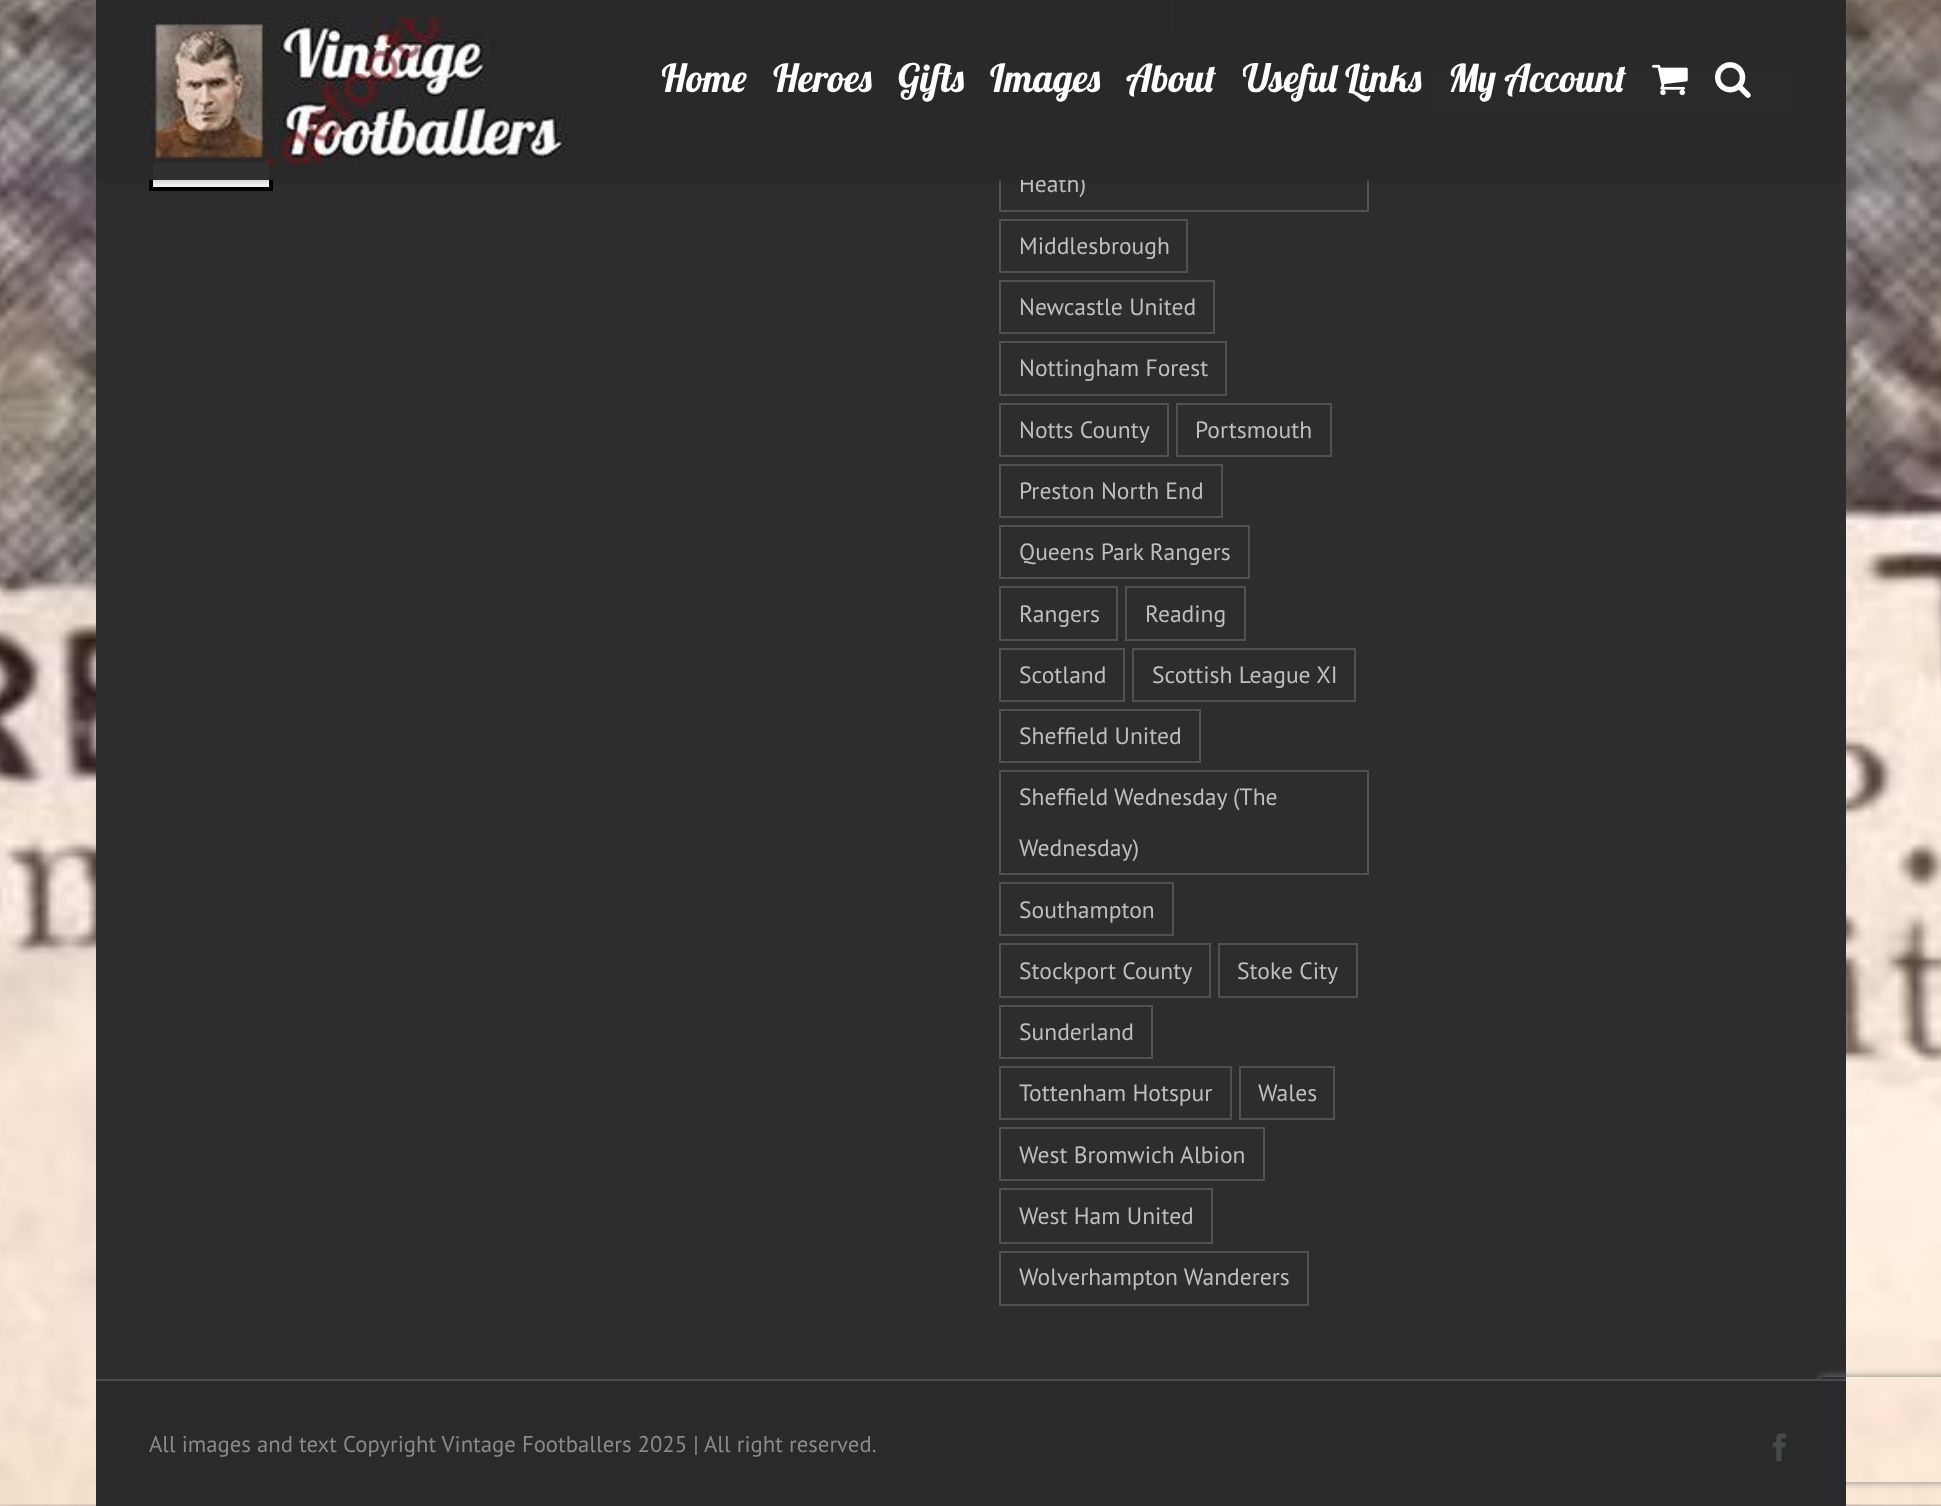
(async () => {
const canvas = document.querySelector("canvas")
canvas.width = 1941
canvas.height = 1506
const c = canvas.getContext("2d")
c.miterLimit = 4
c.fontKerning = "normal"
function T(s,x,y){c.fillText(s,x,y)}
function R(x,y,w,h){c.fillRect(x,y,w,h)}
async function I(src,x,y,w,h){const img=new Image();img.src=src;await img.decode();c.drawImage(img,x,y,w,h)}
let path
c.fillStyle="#fff"
R(0,0,1941,1506)
await I("1.png",0,0,1941,1506)
c.fillStyle="#2d2d2d"
R(96,0,1750,1379)
c.fillStyle="#3e3e3e"
c.beginPath()
c.roundRect(1426,66,367,49,10)
c.fill()
c.strokeStyle="#212122"
c.lineWidth=2
c.stroke()
c.fillStyle="#efefef"
R(153,162,116,25)
c.strokeStyle="#000"
c.lineWidth=4
c.strokeRect(151,151,120,38)
c.strokeStyle="#505152"
c.lineWidth=2
c.strokeRect(1000,-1,172,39)
c.strokeRect(1181,-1,131,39)
c.strokeRect(1000,47,298,52)
c.strokeRect(1000,108,368,103)
c.save()
c.beginPath()
c.rect(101,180,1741,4)
c.clip()
c.fillStyle="#0000001f"
c.filter="blur(2.5px)"
c.beginPath()
c.rect(102,12,1739,170)
c.fill()
c.filter="none"
c.restore()
c.font="23.6px PT Sans"
c.fillStyle="#bfbfbf"
T("Heath)",1019,192)
c.fillStyle="#29292af7"
R(96,0,1750,180)
await I("2.png",149,17,418,146)
c.save()
c.beginPath()
c.rect(662,0,1132,151)
c.clip()
c.font="38.5px Lobster"
c.fillStyle="#fff"
T("Home",661,92)
c.restore()
c.font="38.5px Lobster"
c.fillStyle="#fff"
T("Heroes",773,92)
T("Gifts",898,92)
T("Images",990,92)
T("About",1126,92)
c.save()
c.beginPath()
c.rect(1243,0,204,151)
c.clip()
T("Useful Links",1242,92)
c.restore()
T("My Account",1448,92)
await I("3.png",1652,64,36,32)
await I("4.png",1715,62,36,36)
c.strokeRect(1000,220,187,52)
c.font="23.6px PT Sans"
c.fillStyle="#bfbfbf"
T("Middlesbrough",1019,254)
c.strokeRect(1000,281,214,52)
T("Newcastle United",1019,315)
c.strokeRect(1000,342,226,53)
T("Nottingham Forest",1019,376)
c.strokeRect(1000,404,168,52)
T("Notts County",1019,438)
c.strokeRect(1177,404,154,52)
T("Portsmouth",1195,438)
c.strokeRect(1000,465,222,52)
T("Preston North End",1019,499)
c.strokeRect(1000,526,249,52)
T("Queens Park Rangers",1019,560)
c.strokeRect(1000,587,117,53)
T("Rangers",1019,622)
c.strokeRect(1126,587,119,53)
T("Reading",1145,622)
c.strokeRect(1000,649,124,52)
T("Scotland",1019,683)
c.strokeRect(1133,649,222,52)
T("Scottish League XI",1152,683)
c.strokeRect(1000,710,200,52)
T("Sheffield United",1019,744)
c.strokeRect(1000,771,368,103)
T("Sheffield Wednesday (The",1019,805)
T("Wednesday)",1019,856)
c.strokeRect(1000,883,173,52)
T("Southampton",1019,918)
c.strokeRect(1000,944,210,53)
T("Stockport County",1019,979)
c.strokeRect(1219,944,138,53)
T("Stoke City",1237,979)
c.strokeRect(1000,1006,152,52)
T("Sunderland",1019,1040)
c.strokeRect(1000,1067,231,52)
T("Tottenham Hotspur",1019,1101)
c.strokeRect(1240,1067,94,52)
T("Wales",1258,1101)
c.strokeRect(1000,1128,264,52)
T("West Bromwich Albion",1019,1163)
c.strokeRect(1000,1189,212,54)
T("West Ham United",1019,1224)
c.strokeRect(1000,1252,308,53)
T("Wolverhampton Wanderers",1019,1285)
c.save()
path = new Path2D("M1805 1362h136v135h-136zm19 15h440c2 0 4 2 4 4v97c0 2-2 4-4 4h-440c-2 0-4-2-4-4v-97c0-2 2-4 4-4z")
c.clip(path,"evenodd")
c.fillStyle="#808080"
c.filter="blur(4.5px)"
c.beginPath()
c.roundRect(1820,1377,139,105,4)
c.fill()
c.filter="none"
c.restore()
c.fillStyle="#282a2b"
R(96,1381,1750,125)
c.fillStyle="#4b4c4d"
R(96,1379,1750,2)
c.font="22.75px PT Sans"
c.fillStyle="#8c8989"
T("All images and text Copyright Vintage Footballers 2025 | All right reserved.",149,1452)
await I("5.png",1772,1433,14,29)
})()
